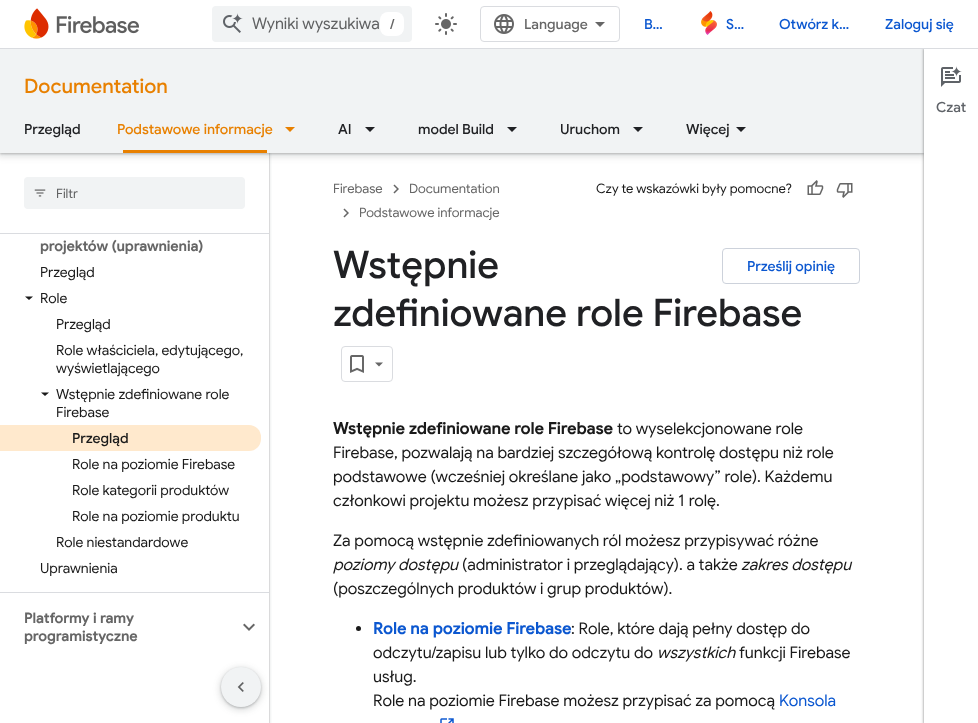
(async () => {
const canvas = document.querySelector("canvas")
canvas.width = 978
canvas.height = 723
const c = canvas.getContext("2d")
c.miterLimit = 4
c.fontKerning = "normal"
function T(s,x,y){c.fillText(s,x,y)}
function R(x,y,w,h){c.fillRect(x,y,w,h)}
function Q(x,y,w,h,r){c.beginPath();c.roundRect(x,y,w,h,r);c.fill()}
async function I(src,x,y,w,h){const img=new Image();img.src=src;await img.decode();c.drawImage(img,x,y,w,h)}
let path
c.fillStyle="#fff"
R(0,0,978,723)
c.save()
c.beginPath()
c.rect(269,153,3,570)
c.clip()
c.fillStyle="#3c404326"
c.filter="blur(1.5px)"
c.beginPath()
c.rect(-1,0,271,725)
c.fill()
c.filter="none"
c.restore()
c.save()
c.beginPath()
c.rect(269,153,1,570)
c.clip()
c.fillStyle="#3c40434d"
c.filter="blur(1px)"
c.beginPath()
c.rect(0,1,269,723)
c.fill()
c.filter="none"
c.restore()
c.fillStyle="#3c404326"
c.filter="blur(3px)"
c.beginPath()
c.rect(-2,49,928,108)
c.fill()
c.filter="none"
c.fillStyle="#3c40434d"
c.filter="blur(1px)"
c.beginPath()
c.rect(0,50,924,104)
c.fill()
c.filter="none"
c.fillStyle="#f1f3f4"
R(0,49,924,104)
c.fillStyle="#00000026"
c.filter="blur(1.5px)"
c.beginPath()
c.rect(923,48,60,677)
c.fill()
c.filter="none"
c.fillStyle="#0000004d"
c.filter="blur(1px)"
c.beginPath()
c.rect(924,49,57,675)
c.fill()
c.filter="none"
c.fillStyle="#fff"
R(0,0,978,48)
c.fillStyle="#dadce0"
R(0,48,978,1)
await I("1.png",24,8,115,31)
c.fillStyle="#f1f3f4"
Q(212,6,200,36,4)
await I("2.png",223,13,20,20)
c.font="16px Google Sans"
c.fillStyle="#606162"
T("Wyniki wyszukiwa",252,29)
c.fillStyle="#fff"
Q(380,12,24,24,8)
c.font="500 14px Google Sans"
c.fillStyle="#666"
T("/",390,29)
await I("3.png",435,13,22,22)
c.beginPath()
c.roundRect(480.5,6.5,139,35,3.5)
c.strokeStyle="#dadce0"
c.stroke()
await I("4.png",494,14,20,20)
T("Language",524,29)
path = new Path2D("M600 27l-5-5h10z")
c.fill(path)
c.fillStyle="#0b57d0"
T("B…",644,29)
await I("5.png",701,11,16,24)
T("S…",726,29)
T("Otwórz k…",779,29)
T("Zaloguj się",885,29)
c.font="500 20px Google Sans"
c.fillStyle="#e88000"
T("Documentation",24,93)
c.font="500 14px Google Sans"
c.fillStyle="#202124"
T("Przegląd",24,134)
c.fillStyle="#e88000"
T("Podstawowe informacje",117,134)
R(123,150,144,3)
path = new Path2D("M285 127h10l-5 5z")
c.fill(path)
c.fillStyle="#202124"
T("AI",338,134)
path = new Path2D("M365 127h10l-5 5z")
c.fill(path)
T("model Build",418,134)
path = new Path2D("M507 127h10l-5 5z")
c.fill(path)
T("Uruchom",560,134)
path = new Path2D("M633 127h10l-5 5z")
c.fill(path)
T("Więcej",686,134)
path = new Path2D("M736 127h10l-5 5z")
c.fill(path)
c.fillStyle="#dadce0"
R(0,233,269,1)
c.fillStyle="#f1f3f4"
Q(24,177,221,32,4)
await I("6.png",34,189,12,8)
c.font="13px Google Sans"
c.fillStyle="#606162"
T("Filtr",56,198)
c.fillStyle="#dadce0"
R(0,592,269,1)
c.letterSpacing="0.25px"
c.font="bold 14px Google Sans"
c.fillStyle="#666"
T("projektów (uprawnienia)",40,251)
c.letterSpacing="0px"
c.font="14px Google Sans"
c.fillStyle="#1a1a1a"
T("Przegląd",40,277)
path = new Path2D("M25 296.5h8l-4 3.5z")
c.fill(path)
T("Role",40,303)
T("Przegląd",56,329)
T("Role właściciela, edytującego,",56,355)
T("wyświetlającego",56,373)
path = new Path2D("M41 392.5h8l-4 3.5z")
c.fill(path)
T("Wstępnie zdefiniowane role",56,399)
T("Firebase",56,417)
c.fillStyle="#ffe9cd"
c.beginPath()
c.roundRect(0,425,261,26,[0,12,12,0])
c.fill()
c.font="500 14px Google Sans"
c.fillStyle="#1a1a1a"
T("Przegląd",72,443)
c.font="14px Google Sans"
T("Role na poziomie Firebase",72,469)
T("Role kategorii produktów",72,495)
T("Role na poziomie produktu",72,521)
T("Role niestandardowe",56,547)
T("Uprawnienia",40,573)
c.letterSpacing="0.25px"
c.font="bold 14px Google Sans"
c.fillStyle="#666"
T("Platformy i ramy",24,623)
T("programistyczne",24,641)
await I("7.png",243,623,12,8)
c.fillStyle="#fff"
R(924,49,54,674)
await I("8.png",941,66,21,21)
c.letterSpacing="0px"
c.font="500 14px Google Sans"
c.fillStyle="#5f6368"
T("Czat",936,112)
c.font="13px Google Sans"
c.fillStyle="#666"
T("Firebase",333,193)
await I("9.png",393,184,6,10)
T("Documentation",409,193)
await I("9.png",343,208,6,10)
T("Podstawowe informacje",359,217)
c.fillStyle="#1a1a1a"
T("Czy te wskazówki były pomocne?",596,193)
await I("10.png",807,180,17,15)
await I("11.png",836,183,17,15)
c.font="500 38px Google Sans"
c.fillStyle="#202124"
T("Wstępnie",333,278)
T("zdefiniowane role Firebase",333,326)
c.beginPath()
c.roundRect(341.5,346.5,51,35,3.5)
c.stroke()
await I("12.png",350,355,14,18)
c.fillStyle="#666"
path = new Path2D("M375 362.5h8l-4 4z")
c.fill(path)
c.beginPath()
c.roundRect(722.5,248.5,137,35,3.5)
c.strokeStyle="#cdd2db"
c.stroke()
c.font="500 14px Google Sans"
c.fillStyle="#0b57d0"
T("Prześlij opinię",747,271)
c.letterSpacing="0.25px"
c.font="bold 16px Google Sans"
c.fillStyle="#1a1a1a"
T("Wstępnie zdefiniowane role Firebase",333,434)
c.letterSpacing="0px"
c.font="16px Google Sans"
T("to wyselekcjonowane role",617,434)
T("Firebase, pozwalają na bardziej szczegółową kontrolę dostępu niż role",333,458)
T("podstawowe (wcześniej określane jako „podstawowy” role). Każdemu",333,482)
T("członkowi projektu możesz przypisać więcej niż 1 rolę.",333,506)
T("Za pomocą wstępnie zdefiniowanych ról możesz przypisywać różne",333,546)
c.font="italic 16px Google Sans"
T("poziomy dostępu",333,570)
c.font="16px Google Sans"
T("(administrator i przeglądający). a także",462,570)
c.font="italic 16px Google Sans"
T("zakres dostępu",741,570)
c.font="16px Google Sans"
T("(poszczególnych produktów i grup produktów).",333,594)
c.beginPath()
c.arc(358.5,628.5,2.5,0,7)
c.fill()
c.letterSpacing="0.25px"
c.font="bold 16px Google Sans"
c.fillStyle="#0b57d0"
T("Role na poziomie Firebase",373,634)
c.letterSpacing="0px"
c.font="16px Google Sans"
c.fillStyle="#1a1a1a"
T(": Role, które dają pełny dostęp do",571,634)
T("odczytu/zapisu lub tylko do odczytu do",373,658)
c.font="italic 16px Google Sans"
T("wszystkich",657,658)
c.font="16px Google Sans"
T("funkcji Firebase",739,658)
T("usług.",373,682)
T("Role na poziomie Firebase możesz przypisać za pomocą",373,706)
c.fillStyle="#0b57d0"
T("Konsola",779,706)
await I("13.png",440,718,14,5)
c.fillStyle="#3c404326"
c.filter="blur(3px)"
c.beginPath()
c.roundRect(219,667,44,44,22)
c.fill()
c.filter="none"
c.fillStyle="#3c40434d"
c.filter="blur(1px)"
c.beginPath()
c.roundRect(221,668,40,40,20)
c.fill()
c.filter="none"
c.fillStyle="#f1f3f4"
c.beginPath()
c.arc(241,687,20,0,7)
c.fill()
await I("14.png",237,682,7,10)
})()
